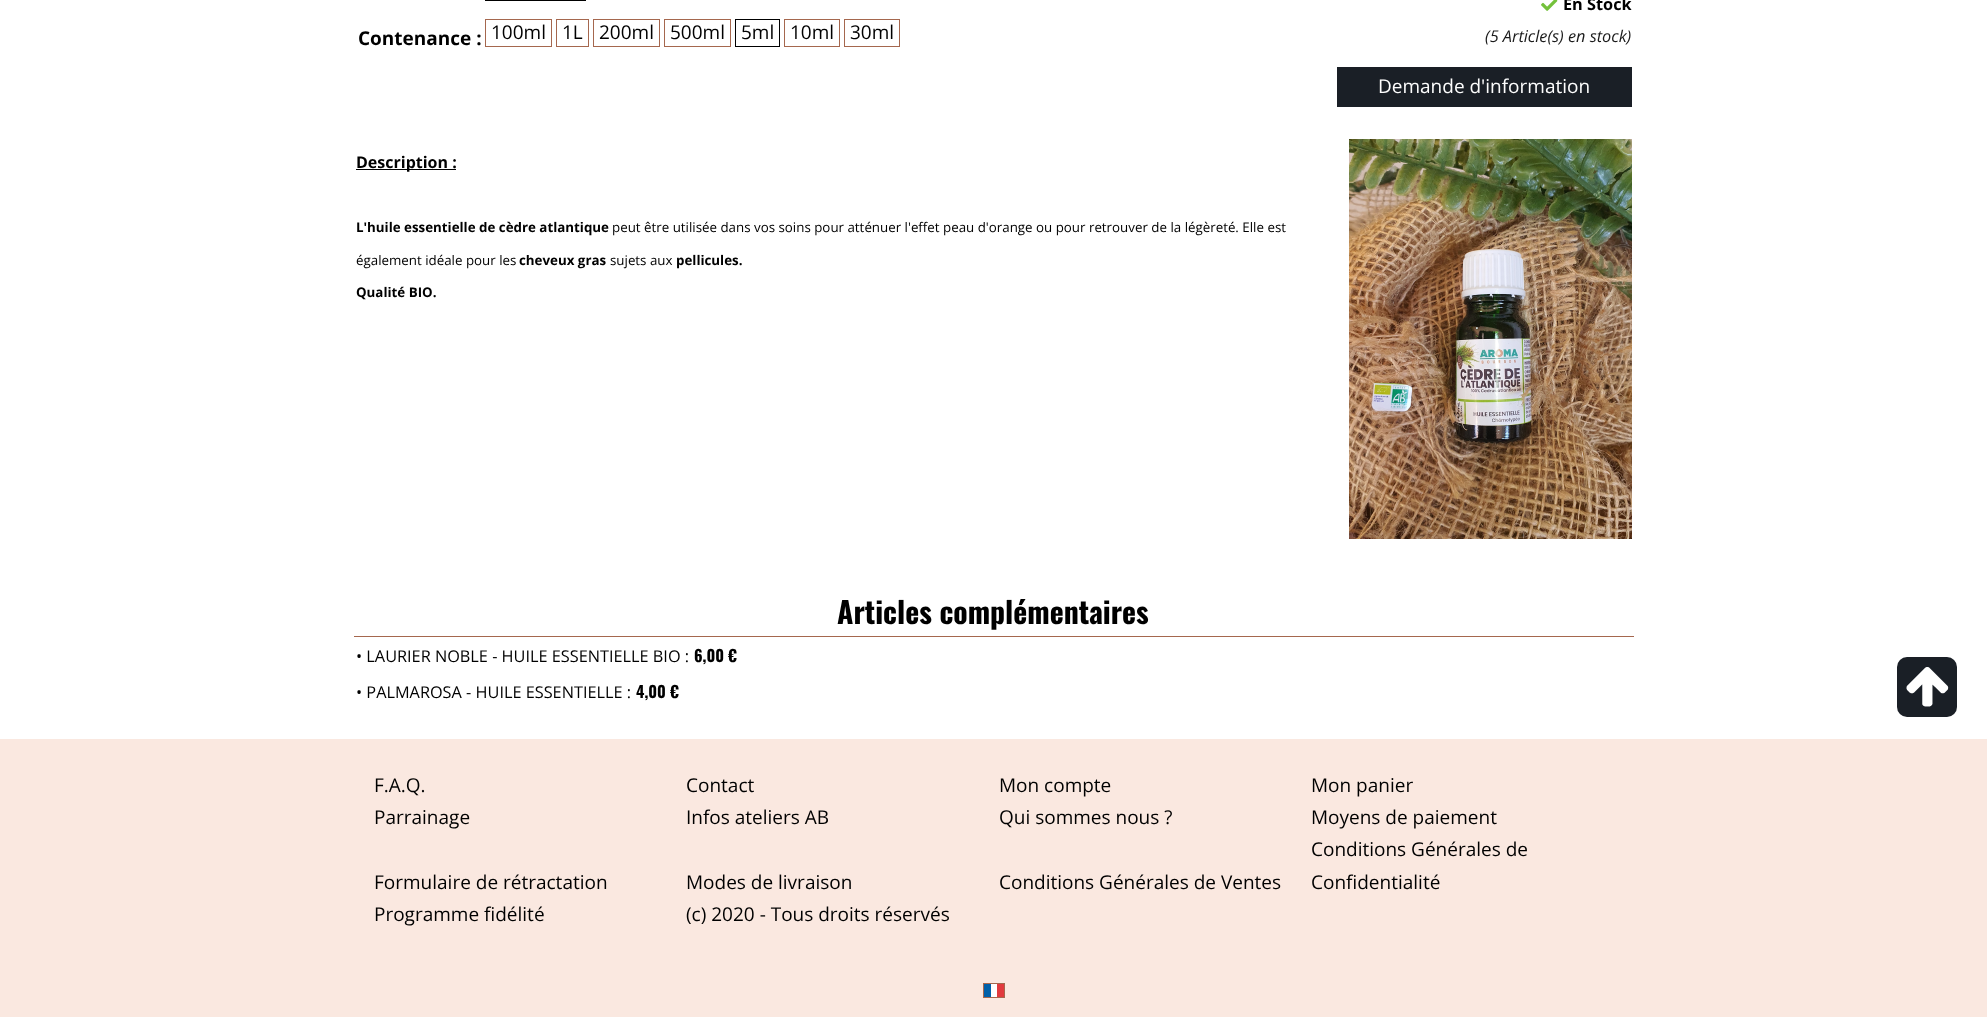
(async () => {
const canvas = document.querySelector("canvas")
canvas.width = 1987
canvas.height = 1017
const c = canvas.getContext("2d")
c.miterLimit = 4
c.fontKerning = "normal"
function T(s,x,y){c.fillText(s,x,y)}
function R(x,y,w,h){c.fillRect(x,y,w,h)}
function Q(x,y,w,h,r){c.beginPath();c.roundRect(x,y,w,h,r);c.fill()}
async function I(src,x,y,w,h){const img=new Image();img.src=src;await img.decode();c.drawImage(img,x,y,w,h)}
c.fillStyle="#fff"
R(0,0,1987,1017)
c.strokeStyle="#000"
c.strokeRect(485.5,-.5,100,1)
c.font="bold 19px Open Sans"
c.fillStyle="#000"
T("Contenance :",358,45)
c.strokeStyle="#a5674e"
c.strokeRect(485.5,19.5,66,27)
c.font="19px Open Sans"
T("100ml",491,39)
c.strokeRect(556.5,19.5,32,27)
T("1L",562,39)
c.strokeRect(593.5,19.5,66,27)
T("200ml",599,39)
c.strokeRect(664.5,19.5,66,27)
T("500ml",670,39)
c.strokeStyle="#000"
c.strokeRect(735.5,19.5,44,27)
T("5ml",741,39)
c.strokeStyle="#a5674e"
c.strokeRect(784.5,19.5,55,27)
T("10ml",790,39)
c.strokeRect(844.5,19.5,55,27)
T("30ml",850,39)
await I("1.png",1541,0,17,11)
c.font="bold 16.3px Open Sans"
T("En Stock",1563,10)
c.font="italic 16.3px Open Sans"
c.fillStyle="#1a1a1a"
T("(5 Article(s) en stock)",1485,42)
c.fillStyle="#1a1f26"
R(1337,67,295,40)
c.font="19px Open Sans"
c.fillStyle="#fdfdfd"
T("Demande d'information",1378,93)
c.fillStyle="#000"
R(356,169,100,1)
c.font="bold 16px Open Sans"
T("Description :",356,168)
c.font="bold 13.33px Open Sans"
T("L'huile essentielle de cèdre atlantique",356,232)
c.font="13.33px Open Sans"
T("peut être utilisée dans vos soins pour atténuer l'effet peau d'orange ou pour retrouver de la légèreté. Elle est",612,232)
T("également idéale pour les",356,265)
c.font="bold 13.33px Open Sans"
T("cheveux gras",519,265)
c.font="13.33px Open Sans"
T("sujets aux",610,265)
c.font="bold 13.33px Open Sans"
T("pellicules.",676,265)
T("Qualité BIO.",356,297)
await I("2.png",1349,139,283,400)
c.fillStyle="#a5674e"
R(354,636,1280,1)
c.font="bold 29.75px Oswald"
c.fillStyle="#000"
T("Articles complémentaires",837,624)
c.font="16.3px Open Sans"
T("• LAURIER NOBLE - HUILE ESSENTIELLE BIO :",356,662)
c.font="bold 16px Oswald"
T("6,00 €",694,662)
c.font="16.3px Open Sans"
T("• PALMAROSA - HUILE ESSENTIELLE :",356,698)
c.font="bold 16px Oswald"
T("4,00 €",636,698)
c.fillStyle="#1a1f26"
Q(1897,657,60,60,10)
await I("3.png",1906,667,43,40)
c.fillStyle="#fae8e0"
R(0,739,1987,278)
c.font="19px Open Sans"
c.fillStyle="#000"
T("F.A.Q.",374,792)
T("Contact",686,792)
T("Mon compte",999,792)
T("Mon panier",1311,792)
T("Parrainage",374,824)
T("Infos ateliers AB",686,824)
T("Qui sommes nous ?",999,824)
T("Moyens de paiement",1311,824)
T("Formulaire de rétractation",374,889)
T("Modes de livraison",686,889)
T("Conditions Générales de Ventes",999,889)
T("Conditions Générales de",1311,856)
T("Confidentialité",1311,889)
T("Programme fidélité",374,921)
T("(c) 2020 - Tous droits réservés",686,921)
await I("4.png",984,984,20,13)
c.strokeRect(983.5,983.5,21,14)
})()
